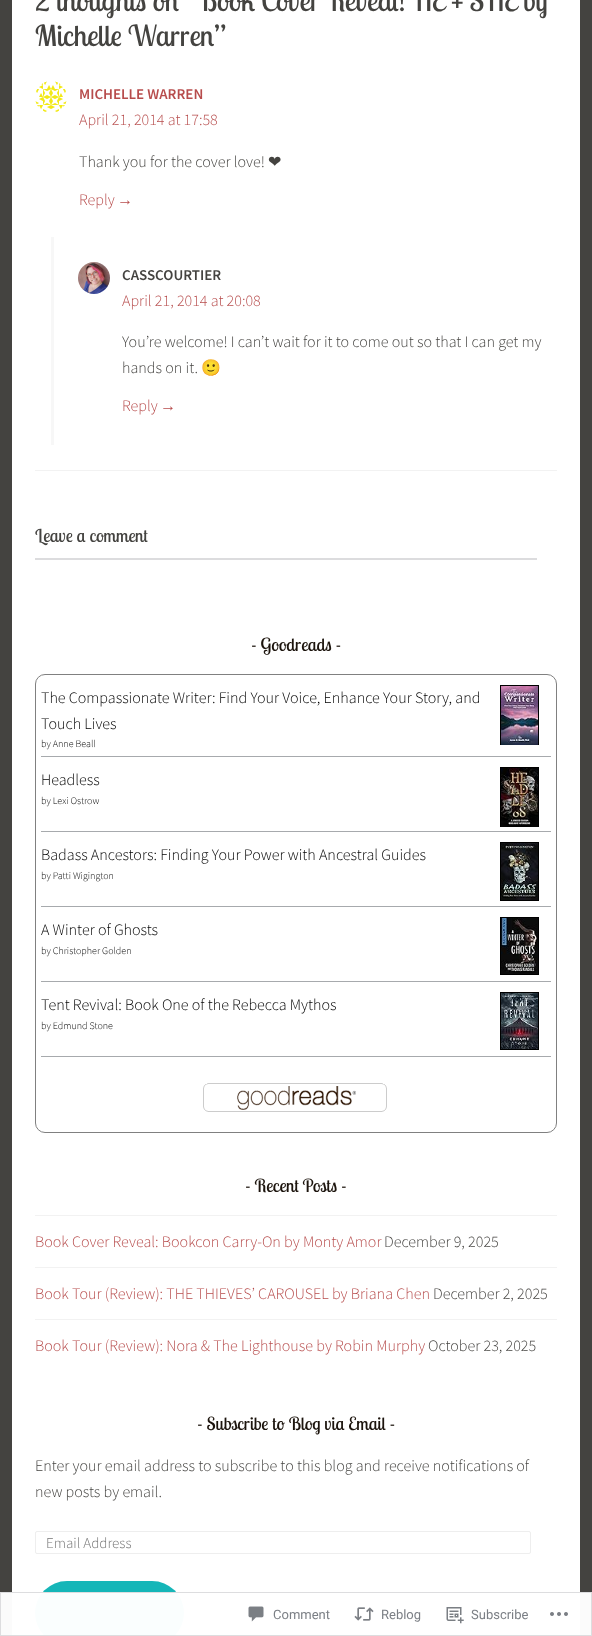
(async () => {
const canvas = document.querySelector("canvas")
canvas.width = 592
canvas.height = 1636
const c = canvas.getContext("2d")
c.miterLimit = 4
c.fontKerning = "normal"
function T(s,x,y){c.fillText(s,x,y)}
function R(x,y,w,h){c.fillRect(x,y,w,h)}
function Q(x,y,w,h,r){c.beginPath();c.roundRect(x,y,w,h,r);c.fill()}
async function I(src,x,y,w,h){const img=new Image();img.src=src;await img.decode();c.drawImage(img,x,y,w,h)}
c.fillStyle="#444340"
R(0,0,592,1636)
c.fillStyle="#fff"
R(12,0,568,1636)
c.font="29px Lobster Two"
c.fillStyle="#444340"
T("2 thoughts on “Book Cover Reveal! HE + SHE by",35,11)
T("Michelle Warren”",35,46)
c.fillStyle="#f2f2f2"
R(35,470,522,1)
await I("1.png",35,81,32,31)
c.font="600 15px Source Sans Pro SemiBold"
c.fillStyle="#b74c4c"
T("MICHELLE WARREN",79,99)
c.font="300 16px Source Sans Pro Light"
T("April 21, 2014 at 17:58",79,125)
c.fillStyle="#444340"
T("Thank you for the cover love!",79,167)
c.font="16px DejaVu Sans"
T("❤",268,167)
c.font="300 16px Source Sans Pro Light"
c.fillStyle="#b74c4c"
T("Reply",79,205)
c.font="16px Liberation Sans"
T("→",117,205)
c.fillStyle="#f7f7f7"
R(51,237,3,208)
await I("2.png",78,262,32,32)
c.font="600 15px Source Sans Pro SemiBold"
c.fillStyle="#444340"
T("CASSCOURTIER",122,280)
c.font="300 16px Source Sans Pro Light"
c.fillStyle="#b74c4c"
T("April 21, 2014 at 20:08",122,306)
c.fillStyle="#444340"
T("You’re welcome! I can’t wait for it to come out so that I can get my",122,347)
T("hands on it.",122,373)
c.font="16px Noto Color Emoji"
T("🙂",201,373)
c.font="300 16px Source Sans Pro Light"
c.fillStyle="#b74c4c"
T("Reply",122,411)
c.font="16px Liberation Sans"
T("→",160,411)
c.font="18px Lobster Two"
c.fillStyle="#444340"
T("Leave a comment",35,542)
c.fillStyle="#dcdcde"
R(35,558,502,2)
c.fillStyle="#1c140d"
T("- Goodreads -",251,651)
c.beginPath()
c.roundRect(35.5,674.5,521,458,9.5)
c.strokeStyle="#808080"
c.stroke()
c.fillStyle="#a7aaad"
R(41,756,510,1)
c.font="300 16px Source Sans Pro Light"
c.fillStyle="#000"
T("The Compassionate Writer: Find Your Voice, Enhance Your Story, and",41,703)
T("Touch Lives",41,729)
c.save()
c.beginPath()
c.rect(500,685,39,60)
c.clip()
c.strokeStyle="#000"
c.strokeRect(500.5,685.5,38,60)
c.restore()
await I("3.png",501,686,37,59)
c.font="300 10px Source Sans Pro Light"
T("by Anne Beall",41,747)
c.fillStyle="#a7aaad"
R(41,831,510,1)
c.font="300 16px Source Sans Pro Light"
c.fillStyle="#000"
T("Headless",41,785)
c.save()
c.beginPath()
c.rect(500,767,39,60)
c.clip()
c.strokeStyle="#000"
c.strokeRect(500.5,767.5,38,60)
c.restore()
await I("4.png",501,768,37,59)
c.font="300 10px Source Sans Pro Light"
T("by Lexi Ostrow",41,804)
c.fillStyle="#a7aaad"
R(41,906,510,1)
c.font="300 16px Source Sans Pro Light"
c.fillStyle="#000"
T("Badass Ancestors: Finding Your Power with Ancestral Guides",41,860)
c.strokeStyle="#000"
c.strokeRect(500.5,842.5,38,58)
await I("5.png",501,843,37,57)
c.font="300 10px Source Sans Pro Light"
T("by Patti Wigington",41,879)
c.fillStyle="#a7aaad"
R(41,981,510,1)
c.font="300 16px Source Sans Pro Light"
c.fillStyle="#000"
T("A Winter of Ghosts",41,935)
c.strokeRect(500.5,917.5,38,57)
await I("6.png",501,918,37,56)
c.font="300 10px Source Sans Pro Light"
T("by Christopher Golden",41,954)
c.fillStyle="#a7aaad"
R(41,1056,510,1)
c.font="300 16px Source Sans Pro Light"
c.fillStyle="#000"
T("Tent Revival: Book One of the Rebecca Mythos",41,1010)
c.strokeRect(500.5,992.5,38,57)
await I("7.png",501,993,37,56)
c.font="300 10px Source Sans Pro Light"
T("by Edmund Stone",41,1029)
await I("8.png",203,1083,184,29)
c.font="18px Lobster Two"
c.fillStyle="#1c140d"
T("- Recent Posts -",245,1192)
c.fillStyle="#f2f2f2"
R(35,1215,522,1)
c.font="300 16px Source Sans Pro Light"
c.fillStyle="#b74c4c"
T("Book Cover Reveal: Bookcon Carry-On by Monty Amor",35,1247)
c.fillStyle="#444340"
T("December 9, 2025",384,1247)
c.fillStyle="#f2f2f2"
R(35,1267,522,1)
c.fillStyle="#b74c4c"
T("Book Tour (Review): THE THIEVES’ CAROUSEL by Briana Chen",35,1299)
c.fillStyle="#444340"
T("December 2, 2025",433,1299)
c.fillStyle="#f2f2f2"
R(35,1319,522,1)
c.fillStyle="#b74c4c"
T("Book Tour (Review): Nora & The Lighthouse by Robin Murphy",35,1351)
c.fillStyle="#444340"
T("October 23, 2025",428,1351)
c.font="18px Lobster Two"
c.fillStyle="#1c140d"
T("- Subscribe to Blog via Email -",197,1430)
c.font="300 16px Source Sans Pro Light"
c.fillStyle="#444340"
T("Enter your email address to subscribe to this blog and receive notifications of",35,1471)
T("new posts by email.",35,1497)
c.beginPath()
c.roundRect(35.5,1531.5,495,22,1.5)
c.strokeStyle="#eee"
c.stroke()
c.font="300 15px Source Sans Pro Light"
c.fillStyle="#757575"
T("Email Address",46,1548)
c.fillStyle="#15b6b8"
Q(35,1581,149,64,32)
c.fillStyle="#fffffffa"
R(0,1592,592,44)
c.strokeStyle="#dcdcdefa"
c.strokeRect(.5,1592.5,591,43)
await I("9.png",248,1606,16,16)
c.font="13px Roboto"
c.fillStyle="#7b7f85"
T("Comment",273,1619)
await I("10.png",354,1607,20,14)
T("Reblog",381,1619)
await I("11.png",446,1607,18,17)
T("Subscribe",471,1619)
await I("12.png",550,1612,18,4)
})()
